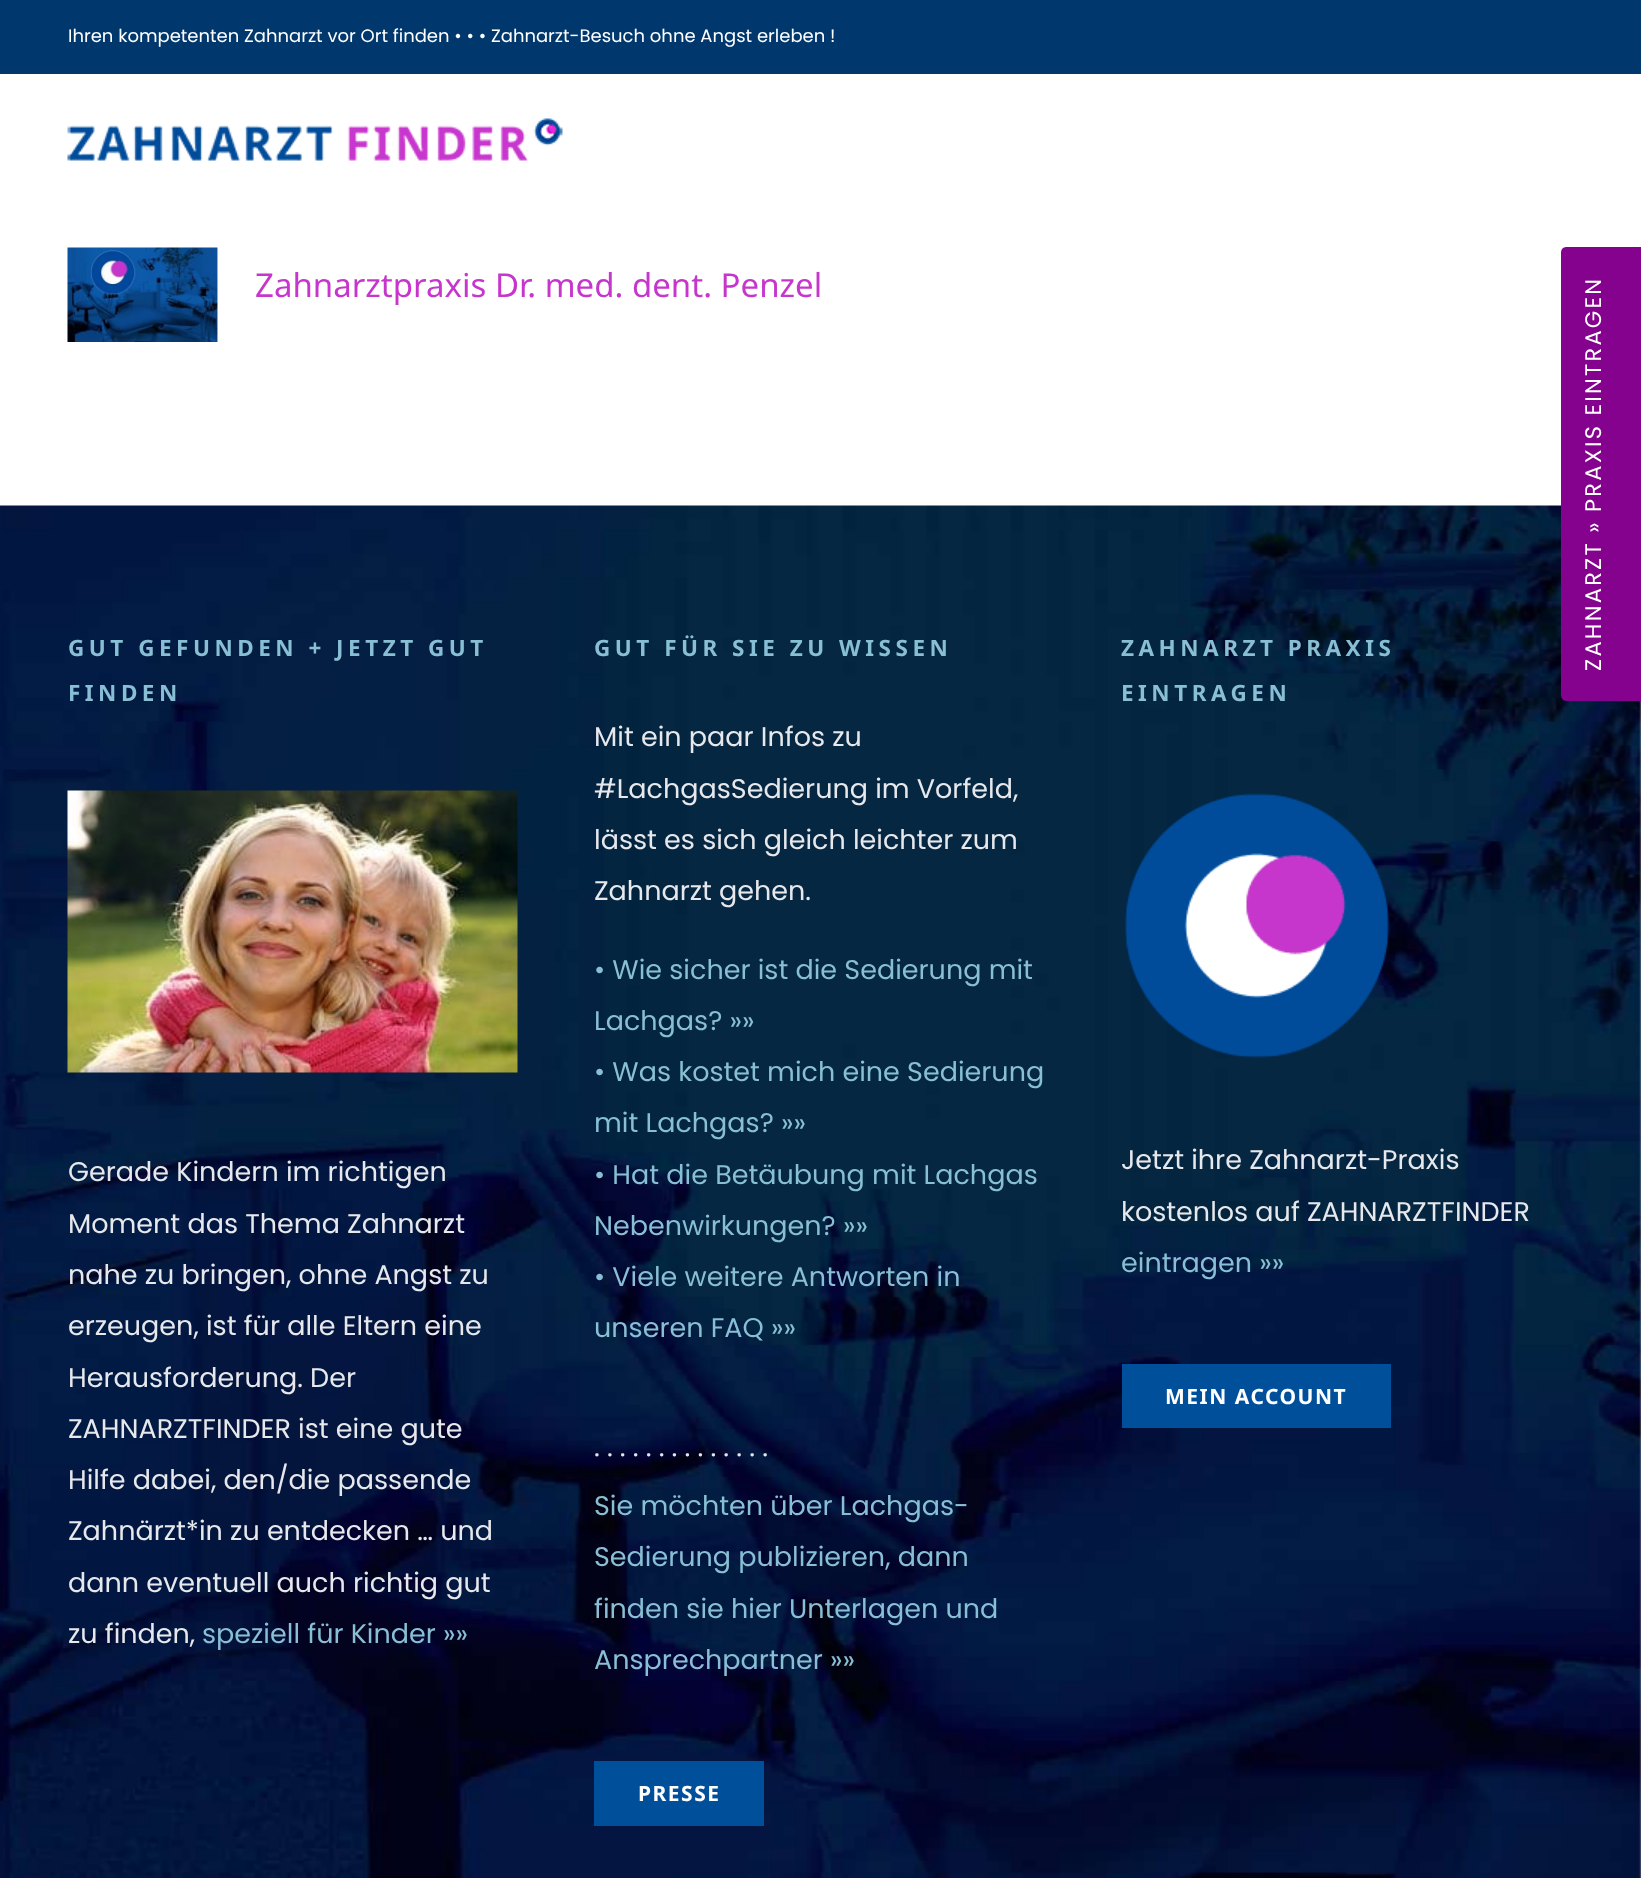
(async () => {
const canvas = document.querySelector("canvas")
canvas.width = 1641
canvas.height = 1878
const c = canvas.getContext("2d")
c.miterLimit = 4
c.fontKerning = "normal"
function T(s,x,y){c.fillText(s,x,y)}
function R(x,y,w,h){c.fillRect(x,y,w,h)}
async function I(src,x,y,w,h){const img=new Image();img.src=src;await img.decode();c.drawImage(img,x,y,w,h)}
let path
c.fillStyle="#fff"
R(0,0,1641,1878)
c.fillStyle="#00386e"
R(0,0,1641,74)
c.font="18px Poppins"
c.fillStyle="#fff"
T("Ihren kompetenten Zahnarzt vor Ort finden • • • Zahnarzt-Besuch ohne Angst erleben !",68,42)
await I("1.png",67,118,496,43)
await I("2.png",67,247,151,95)
c.font="33px Noto Sans"
c.fillStyle="#c736cc"
T("Zahnarztpraxis Dr. med. dent. Penzel",255,297)
await I("3.png",0,505,1641,1373)
c.letterSpacing="4.5px"
c.font="bold 22.5px Noto Sans"
c.fillStyle="#88bfd4"
T("GUT GEFUNDEN + JETZT GUT",68,656)
T("FINDEN",68,701)
await I("4.png",67,790,451,283)
c.letterSpacing="0px"
c.font="27px Poppins"
c.fillStyle="#e6e8ec"
T("Gerade Kindern im richtigen",68,1181)
T("Moment das Thema Zahnarzt",68,1233)
T("nahe zu bringen, ohne Angst zu",68,1284)
T("erzeugen, ist für alle Eltern eine",68,1335)
T("Herausforderung. Der",68,1387)
T("ZAHNARZTFINDER ist eine gute",68,1438)
T("Hilfe dabei, den/die passende",68,1489)
T("Zahnärzt*in zu entdecken … und",68,1540)
T("dann eventuell auch richtig gut",68,1592)
T("zu finden,",68,1643)
c.fillStyle="#88bfd4"
T("speziell für Kinder »»",202,1643)
c.letterSpacing="4.5px"
c.font="bold 22.5px Noto Sans"
T("GUT FÜR SIE ZU WISSEN",594,656)
c.letterSpacing="0px"
c.font="27px Poppins"
c.fillStyle="#e6e8ec"
T("Mit ein paar Infos zu",594,746)
T("#LachgasSedierung im Vorfeld,",594,798)
T("lässt es sich gleich leichter zum",594,849)
T("Zahnarzt gehen.",594,900)
c.fillStyle="#88bfd4"
T("• Wie sicher ist die Sedierung mit",594,979)
T("Lachgas? »»",594,1030)
T("• Was kostet mich eine Sedierung",594,1081)
T("mit Lachgas? »»",594,1132)
T("• Hat die Betäubung mit Lachgas",594,1184)
T("Nebenwirkungen? »»",594,1235)
T("• Viele weitere Antworten in",594,1286)
T("unseren FAQ »»",594,1337)
c.fillStyle="#e6e8ec"
T("· · · · · · · · · · · · · ·",594,1464)
c.fillStyle="#88bfd4"
T("Sie möchten über Lachgas-",594,1515)
T("Sedierung publizieren, dann",594,1566)
T("finden sie hier Unterlagen und",594,1618)
T("Ansprechpartner »»",594,1669)
c.fillStyle="#004f9a"
R(594,1761,170,65)
c.letterSpacing="1.5px"
c.font="bold 21px Noto Sans"
c.fillStyle="#fff"
T("PRESSE",638,1801)
c.letterSpacing="4.5px"
c.font="bold 22.5px Noto Sans"
c.fillStyle="#88bfd4"
T("ZAHNARZT PRAXIS",1121,656)
T("EINTRAGEN",1121,701)
await I("5.png",1124,793,266,265)
c.letterSpacing="0px"
c.font="27px Poppins"
c.fillStyle="#e6e8ec"
T("Jetzt ihre Zahnarzt-Praxis",1121,1169)
T("kostenlos auf ZAHNARZTFINDER",1121,1221)
c.fillStyle="#88bfd4"
T("eintragen »»",1121,1272)
c.fillStyle="#004f9a"
R(1122,1364,269,64)
c.letterSpacing="1.5px"
c.font="bold 21px Noto Sans"
c.fillStyle="#fff"
T("MEIN ACCOUNT",1165,1404)
c.fillStyle="#84028d"
path = new Path2D("M1561 695v-442c0-4 2-6 6-6h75v454h-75c-4 0-6-3-6-6z")
c.fill(path)
c.letterSpacing="2.25px"
c.font="22.5px Poppins"
c.fillStyle="#fff"
c.save()
c.translate(1601,671)
c.rotate(-90 * Math.PI / 180)
c.fillText("ZAHNARZT » PRAXIS EINTRAGEN",0,0)
c.restore()
})()
